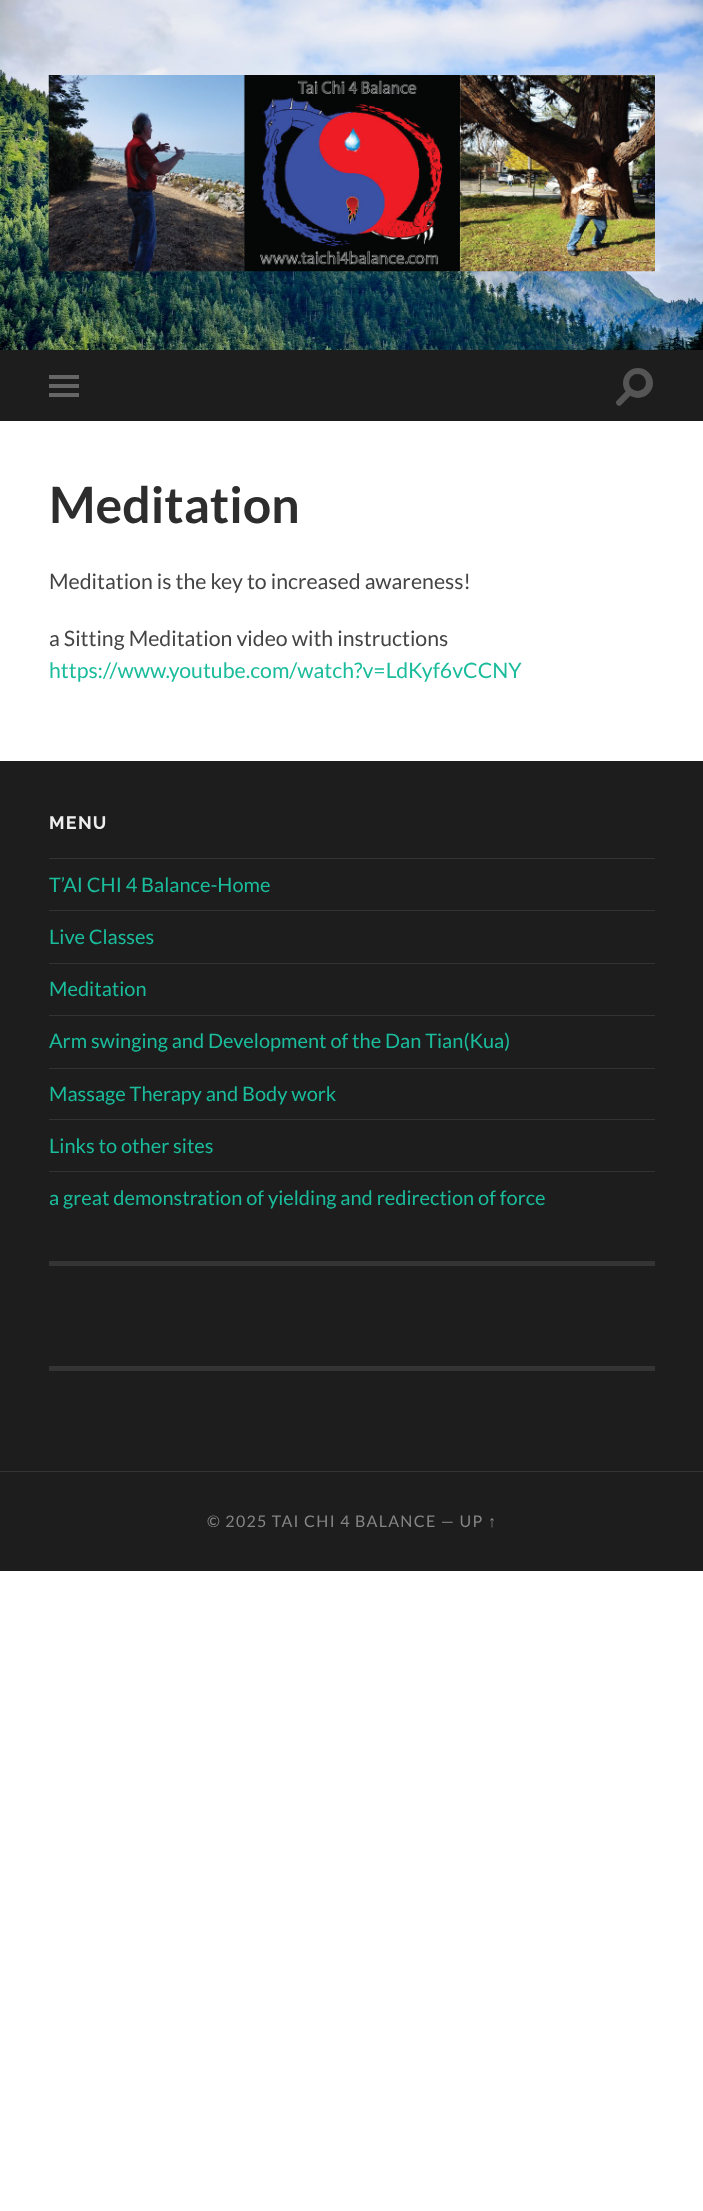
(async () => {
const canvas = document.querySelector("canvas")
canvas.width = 703
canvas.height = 2211
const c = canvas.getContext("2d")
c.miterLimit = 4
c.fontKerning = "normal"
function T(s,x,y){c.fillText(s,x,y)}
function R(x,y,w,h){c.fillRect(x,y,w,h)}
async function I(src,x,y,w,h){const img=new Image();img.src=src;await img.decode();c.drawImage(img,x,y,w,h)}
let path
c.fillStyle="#fff"
R(0,0,703,2211)
await I("1.png",0,0,703,350)
await I("2.png",48,75,607,197)
c.fillStyle="#1d1d1d"
R(0,350,703,71)
c.fillStyle="#666"
R(49,375,30,4)
R(49,384,30,4)
R(49,393,30,4)
c.fillStyle="#555"
c.beginPath()
c.arc(638,383,15,0,7)
c.fill()
c.fillStyle="#1d1d1d"
c.beginPath()
c.arc(637.5,382.5,8.5,0,7)
c.fill()
c.fillStyle="#555"
path = new Path2D("M616.5 401l10.5-11l4.5 4.5l-7 7c-2.5 2.5-5 7-8 2.5c-1-1-.5-2.5 0-3z")
c.fill(path)
c.font="bold 50px Lato"
c.fillStyle="#2d2d2d"
T("Meditation",49,523)
c.font="21.25px Lato"
c.fillStyle="#444"
T("Meditation is the key to increased awareness!",49,589)
T("a Sitting Meditation video with instructions",49,646)
c.fillStyle="#1abc9c"
T("https://www.youtube.com/watch?v=LdKyf6vCCNY",49,678)
c.fillStyle="#1d1d1d"
R(0,761,703,710)
c.letterSpacing="1.25px"
c.font="100 18px Raleway"
c.fillStyle="#eee"
T("MENU",49,829)
c.fillStyle="#333"
R(49,858,606,1)
c.letterSpacing="0px"
c.font="20px Lato"
c.fillStyle="#1abc9c"
T("T’AI CHI 4 Balance-Home",49,892)
c.fillStyle="#333"
R(49,910,606,1)
c.fillStyle="#1abc9c"
T("Live Classes",49,944)
c.fillStyle="#333"
R(49,963,606,1)
c.fillStyle="#1abc9c"
T("Meditation",49,996)
c.fillStyle="#333"
R(49,1015,606,1)
c.fillStyle="#1abc9c"
T("Arm swinging and Development of the Dan Tian(Kua)",49,1048)
c.fillStyle="#333"
R(49,1068,606,1)
c.fillStyle="#1abc9c"
T("Massage Therapy and Body work",49,1101)
c.fillStyle="#333"
R(49,1119,606,1)
c.fillStyle="#1abc9c"
T("Links to other sites",49,1153)
c.fillStyle="#333"
R(49,1171,606,1)
c.fillStyle="#1abc9c"
T("a great demonstration of yielding and redirection of force",49,1205)
c.fillStyle="#343434"
R(49,1261,606,5)
R(49,1366,606,5)
c.fillStyle="#1d1d1d"
R(0,1472,703,99)
c.fillStyle="#343434"
R(0,1471,703,1)
c.letterSpacing="1.25px"
c.font="16px Lato"
c.fillStyle="#858585"
T("© 2025 TAI CHI 4 BALANCE — UP",207,1527)
c.font="16px Liberation Sans"
T("↑",488,1527)
})()
